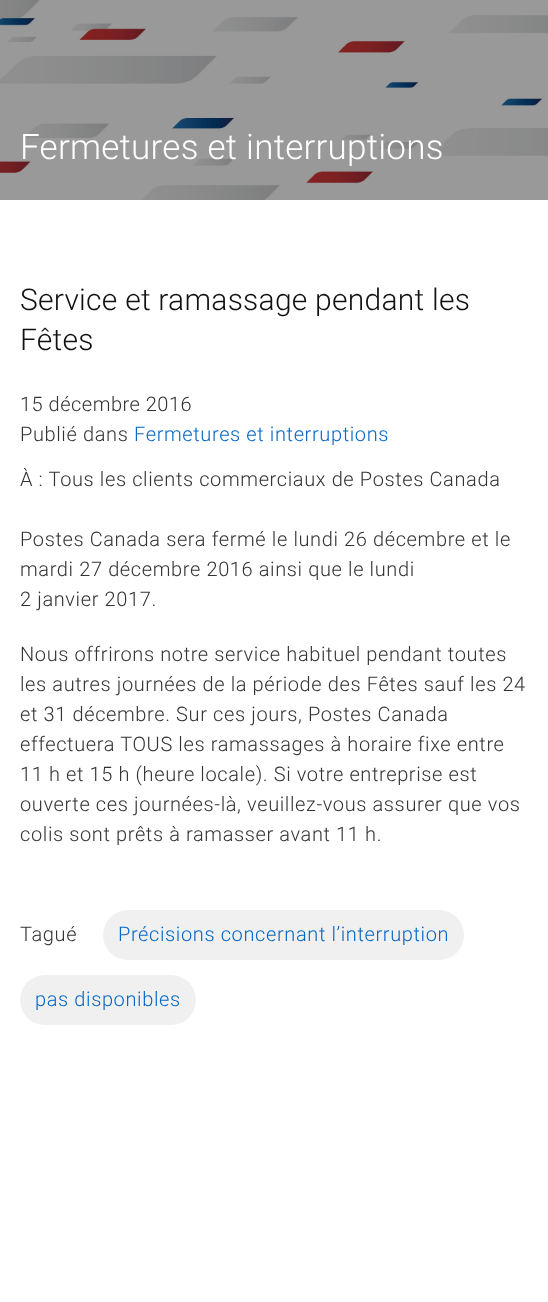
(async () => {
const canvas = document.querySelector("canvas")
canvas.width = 548
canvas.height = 1302
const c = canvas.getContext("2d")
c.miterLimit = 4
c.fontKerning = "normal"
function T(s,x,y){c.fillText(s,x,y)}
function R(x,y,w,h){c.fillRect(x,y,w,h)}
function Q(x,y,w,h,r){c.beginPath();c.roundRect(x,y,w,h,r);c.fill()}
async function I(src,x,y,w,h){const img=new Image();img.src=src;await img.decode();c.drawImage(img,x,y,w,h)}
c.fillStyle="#fff"
R(0,0,548,1302)
await I("1.png",0,0,548,200)
c.letterSpacing="0.25px"
c.font="300 35px Roboto"
T("Fermetures et interruptions",20,159)
c.font="300 30px Roboto"
c.fillStyle="#111"
T("Service et ramassage pendant les",20,310)
T("Fêtes",20,350)
c.letterSpacing="0.5px"
c.font="300 20px Roboto"
c.fillStyle="#333"
T("15 décembre 2016",20,411)
c.letterSpacing="0.62px"
T("Publié dans",20,441)
c.fillStyle="#0467c6"
T("Fermetures et interruptions",134,441)
c.fillStyle="#333"
T("À : Tous les clients commerciaux de Postes Canada",20,486)
T("Postes Canada sera fermé le lundi 26 décembre et le",20,546)
T("mardi 27 décembre 2016 ainsi que le lundi",20,576)
T("2 janvier 2017.",20,606)
T("Nous offrirons notre service habituel pendant toutes",20,661)
T("les autres journées de la période des Fêtes sauf les 24",20,691)
T("et 31 décembre. Sur ces jours, Postes Canada",20,721)
T("effectuera TOUS les ramassages à horaire fixe entre",20,751)
T("11 h et 15 h (heure locale). Si votre entreprise est",20,781)
T("ouverte ces journées-là, veuillez-vous assurer que vos",20,811)
T("colis sont prêts à ramasser avant 11 h.",20,841)
T("Tagué",20,941)
c.fillStyle="#f0f0f0"
Q(103,910,361,50,25)
c.fillStyle="#0467c6"
T("Précisions concernant l’interruption",118,941)
c.fillStyle="#f0f0f0"
Q(20,975,176,50,25)
c.fillStyle="#0467c6"
T("pas disponibles",35,1006)
})()
